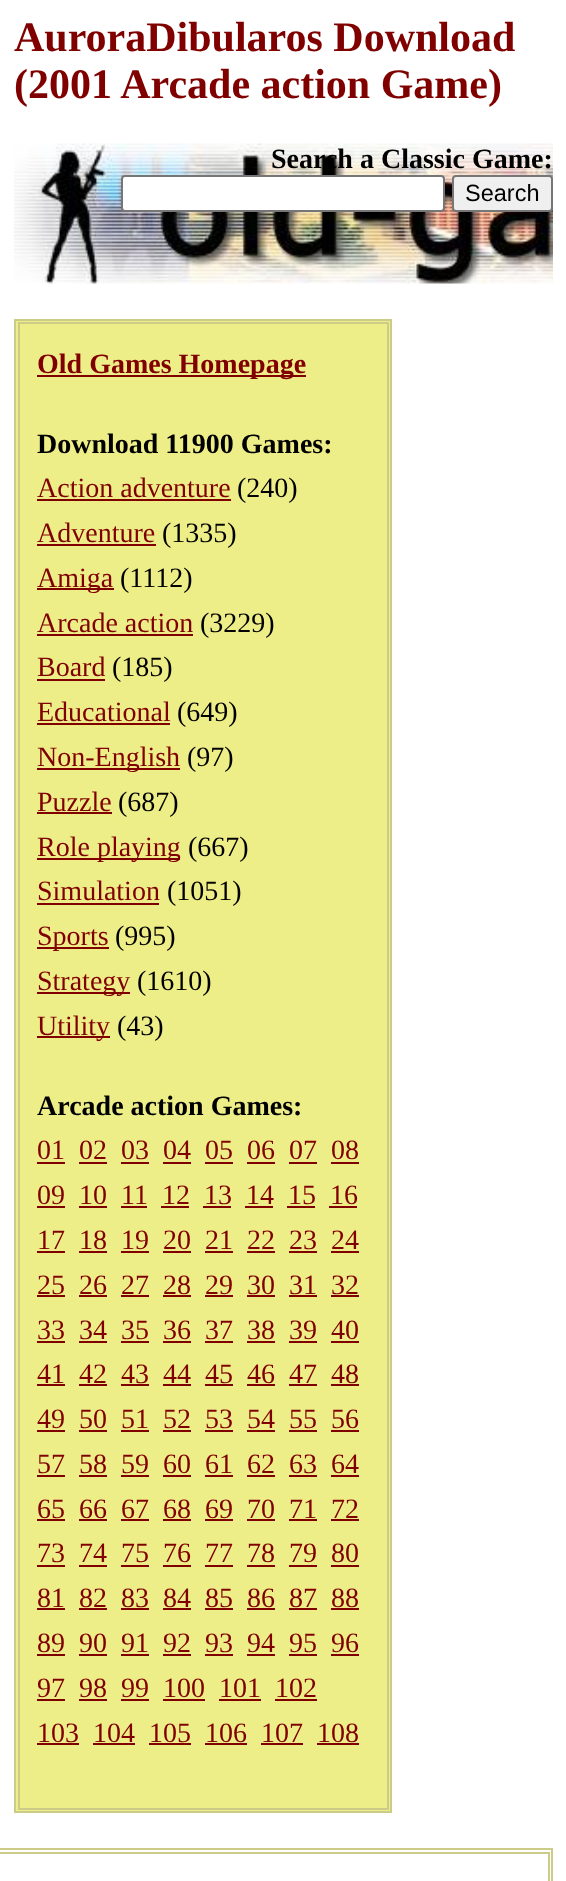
(async () => {
const canvas = document.querySelector("canvas")
canvas.width = 566
canvas.height = 1881
const c = canvas.getContext("2d")
c.miterLimit = 4
c.fontKerning = "normal"
function T(s,x,y){c.fillText(s,x,y)}
function R(x,y,w,h){c.fillRect(x,y,w,h)}
async function I(src,x,y,w,h){const img=new Image();img.src=src;await img.decode();c.drawImage(img,x,y,w,h)}
c.fillStyle="#fff"
R(0,0,566,1881)
c.font="bold 42px Liberation Serif"
c.fillStyle="#800000"
T("AuroraDibularos Download",14,51)
T("(2001 Arcade action Game)",14,98)
await I("1.png",14,143,539,141)
c.font="bold 28px Liberation Serif"
c.fillStyle="#000"
T("Search a Classic Game:",271,168)
c.fillStyle="#fff"
c.beginPath()
c.roundRect(122,176,322,35,3)
c.fill()
c.strokeStyle="#767676"
c.lineWidth=2
c.stroke()
c.fillStyle="#efefef"
c.beginPath()
c.roundRect(453,176,99,35,3)
c.fill()
c.stroke()
c.font="23.5px Liberation Sans"
c.fillStyle="#000"
T("Search",465,201)
c.fillStyle="#ee8"
c.beginPath()
c.rect(15,320,376,1492)
c.fill()
c.strokeStyle="#cc8"
c.stroke()
c.strokeRect(19,323,369,1486)
c.fillStyle="#800000"
R(37,375,269,2)
c.font="bold 28px Liberation Serif"
T("Old Games Homepage",37,373)
c.fillStyle="#000"
T("Download 11900 Games:",37,453)
c.font="28px Liberation Serif"
c.fillStyle="#800000"
T("Action adventure",37,497)
R(37,499,194,2)
c.fillStyle="#000"
T("(240)",237,497)
c.fillStyle="#800000"
T("Adventure",37,542)
R(37,544,119,2)
c.fillStyle="#000"
T("(1335)",162,542)
c.fillStyle="#800000"
R(37,588,77,2)
T("Amiga",37,587)
c.fillStyle="#000"
T("(1112)",120,587)
c.fillStyle="#800000"
T("Arcade action",37,632)
R(37,634,156,2)
c.fillStyle="#000"
T("(3229)",200,632)
c.fillStyle="#800000"
T("Board",37,676)
R(37,679,68,2)
c.fillStyle="#000"
T("(185)",112,676)
c.fillStyle="#800000"
T("Educational",37,721)
R(37,723,133,2)
c.fillStyle="#000"
T("(649)",177,721)
c.fillStyle="#800000"
R(37,768,143,2)
T("Non-English",37,766)
c.fillStyle="#000"
T("(97)",187,766)
c.fillStyle="#800000"
T("Puzzle",37,811)
R(37,812,75,2)
c.fillStyle="#000"
T("(687)",118,811)
c.fillStyle="#800000"
R(37,858,143,2)
T("Role playing",37,856)
c.fillStyle="#000"
T("(667)",188,856)
c.fillStyle="#800000"
T("Simulation",37,900)
R(37,903,122,2)
c.fillStyle="#000"
T("(1051)",167,900)
c.fillStyle="#800000"
R(37,947,72,2)
T("Sports",37,945)
c.fillStyle="#000"
T("(995)",115,945)
c.fillStyle="#800000"
R(37,992,93,2)
T("Strategy",37,990)
c.fillStyle="#000"
T("(1610)",137,990)
c.fillStyle="#800000"
R(37,1036,73,2)
T("Utility",37,1035)
c.fillStyle="#000"
T("(43)",117,1035)
c.font="bold 28px Liberation Serif"
T("Arcade action Games:",37,1115)
c.font="28px Liberation Serif"
c.fillStyle="#800000"
T("01",37,1159)
R(37,1162,28,2)
T("02",79,1159)
R(79,1162,28,2)
T("03",121,1159)
R(121,1162,28,2)
T("04",163,1159)
R(163,1162,28,2)
T("05",205,1159)
R(205,1162,28,2)
T("06",247,1159)
R(247,1162,28,2)
T("07",289,1159)
R(289,1162,28,2)
T("08",331,1159)
R(331,1162,28,2)
T("09",37,1204)
R(37,1206,28,2)
T("10",79,1204)
R(79,1206,28,2)
T("11",121,1204)
R(121,1206,26,2)
T("12",162,1204)
R(161,1206,28,2)
T("13",204,1204)
R(203,1206,28,2)
T("14",246,1204)
R(245,1206,28,2)
T("15",288,1204)
R(287,1206,28,2)
T("16",330,1204)
R(329,1206,28,2)
T("17",37,1249)
R(37,1251,28,2)
T("18",79,1249)
R(79,1251,28,2)
T("19",121,1249)
R(121,1251,28,2)
T("20",163,1249)
R(163,1251,28,2)
T("21",205,1249)
R(205,1251,28,2)
T("22",247,1249)
R(247,1251,28,2)
T("23",289,1249)
R(289,1251,28,2)
T("24",331,1249)
R(331,1251,28,2)
T("25",37,1294)
R(37,1295,28,2)
T("26",79,1294)
R(79,1295,28,2)
T("27",121,1294)
R(121,1295,28,2)
T("28",163,1294)
R(163,1295,28,2)
T("29",205,1294)
R(205,1295,28,2)
T("30",247,1294)
R(247,1295,28,2)
T("31",289,1294)
R(289,1295,28,2)
T("32",331,1294)
R(331,1295,28,2)
T("33",37,1339)
R(37,1341,28,2)
T("34",79,1339)
R(79,1341,28,2)
T("35",121,1339)
R(121,1341,28,2)
T("36",163,1339)
R(163,1341,28,2)
T("37",205,1339)
R(205,1341,28,2)
T("38",247,1339)
R(247,1341,28,2)
T("39",289,1339)
R(289,1341,28,2)
T("40",331,1339)
R(331,1341,28,2)
T("41",37,1383)
R(37,1384,28,2)
T("42",79,1383)
R(79,1384,28,2)
T("43",121,1383)
R(121,1384,28,2)
T("44",163,1383)
R(163,1384,28,2)
T("45",205,1383)
R(205,1384,28,2)
T("46",247,1383)
R(247,1384,28,2)
T("47",289,1383)
R(289,1384,28,2)
T("48",331,1383)
R(331,1384,28,2)
T("49",37,1428)
R(37,1430,28,2)
T("50",79,1428)
R(79,1430,28,2)
T("51",121,1428)
R(121,1430,28,2)
T("52",163,1428)
R(163,1430,28,2)
T("53",205,1428)
R(205,1430,28,2)
T("54",247,1428)
R(247,1430,28,2)
T("55",289,1428)
R(289,1430,28,2)
T("56",331,1428)
R(331,1430,28,2)
T("57",37,1473)
R(37,1475,28,2)
T("58",79,1473)
R(79,1475,28,2)
T("59",121,1473)
R(121,1475,28,2)
T("60",163,1473)
R(163,1475,28,2)
T("61",205,1473)
R(205,1475,28,2)
T("62",247,1473)
R(247,1475,28,2)
T("63",289,1473)
R(289,1475,28,2)
T("64",331,1473)
R(331,1475,28,2)
T("65",37,1518)
R(37,1519,28,2)
T("66",79,1518)
R(79,1519,28,2)
T("67",121,1518)
R(121,1519,28,2)
T("68",163,1518)
R(163,1519,28,2)
T("69",205,1518)
R(205,1519,28,2)
T("70",247,1518)
R(247,1519,28,2)
T("71",289,1518)
R(289,1519,28,2)
T("72",331,1518)
R(331,1519,28,2)
T("73",37,1562)
R(37,1565,28,2)
T("74",79,1562)
R(79,1565,28,2)
T("75",121,1562)
R(121,1565,28,2)
T("76",163,1562)
R(163,1565,28,2)
T("77",205,1562)
R(205,1565,28,2)
T("78",247,1562)
R(247,1565,28,2)
T("79",289,1562)
R(289,1565,28,2)
T("80",331,1562)
R(331,1565,28,2)
T("81",37,1607)
R(37,1608,28,2)
T("82",79,1607)
R(79,1608,28,2)
T("83",121,1607)
R(121,1608,28,2)
T("84",163,1607)
R(163,1608,28,2)
T("85",205,1607)
R(205,1608,28,2)
T("86",247,1607)
R(247,1608,28,2)
T("87",289,1607)
R(289,1608,28,2)
T("88",331,1607)
R(331,1608,28,2)
T("89",37,1652)
R(37,1654,28,2)
T("90",79,1652)
R(79,1654,28,2)
T("91",121,1652)
R(121,1654,28,2)
T("92",163,1652)
R(163,1654,28,2)
T("93",205,1652)
R(205,1654,28,2)
T("94",247,1652)
R(247,1654,28,2)
T("95",289,1652)
R(289,1654,28,2)
T("96",331,1652)
R(331,1654,28,2)
T("97",37,1697)
R(37,1699,28,2)
T("98",79,1697)
R(79,1699,28,2)
T("99",121,1697)
R(121,1699,28,2)
T("100",163,1697)
R(163,1699,42,2)
T("101",219,1697)
R(219,1699,42,2)
T("102",275,1697)
R(275,1699,42,2)
T("103",37,1742)
R(37,1743,42,2)
T("104",93,1742)
R(93,1743,42,2)
T("105",149,1742)
R(149,1743,42,2)
T("106",205,1742)
R(205,1743,42,2)
T("107",261,1742)
R(261,1743,42,2)
T("108",317,1742)
R(317,1743,42,2)
c.strokeRect(-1,1849,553,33)
c.strokeRect(-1,1853,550,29)
})()
